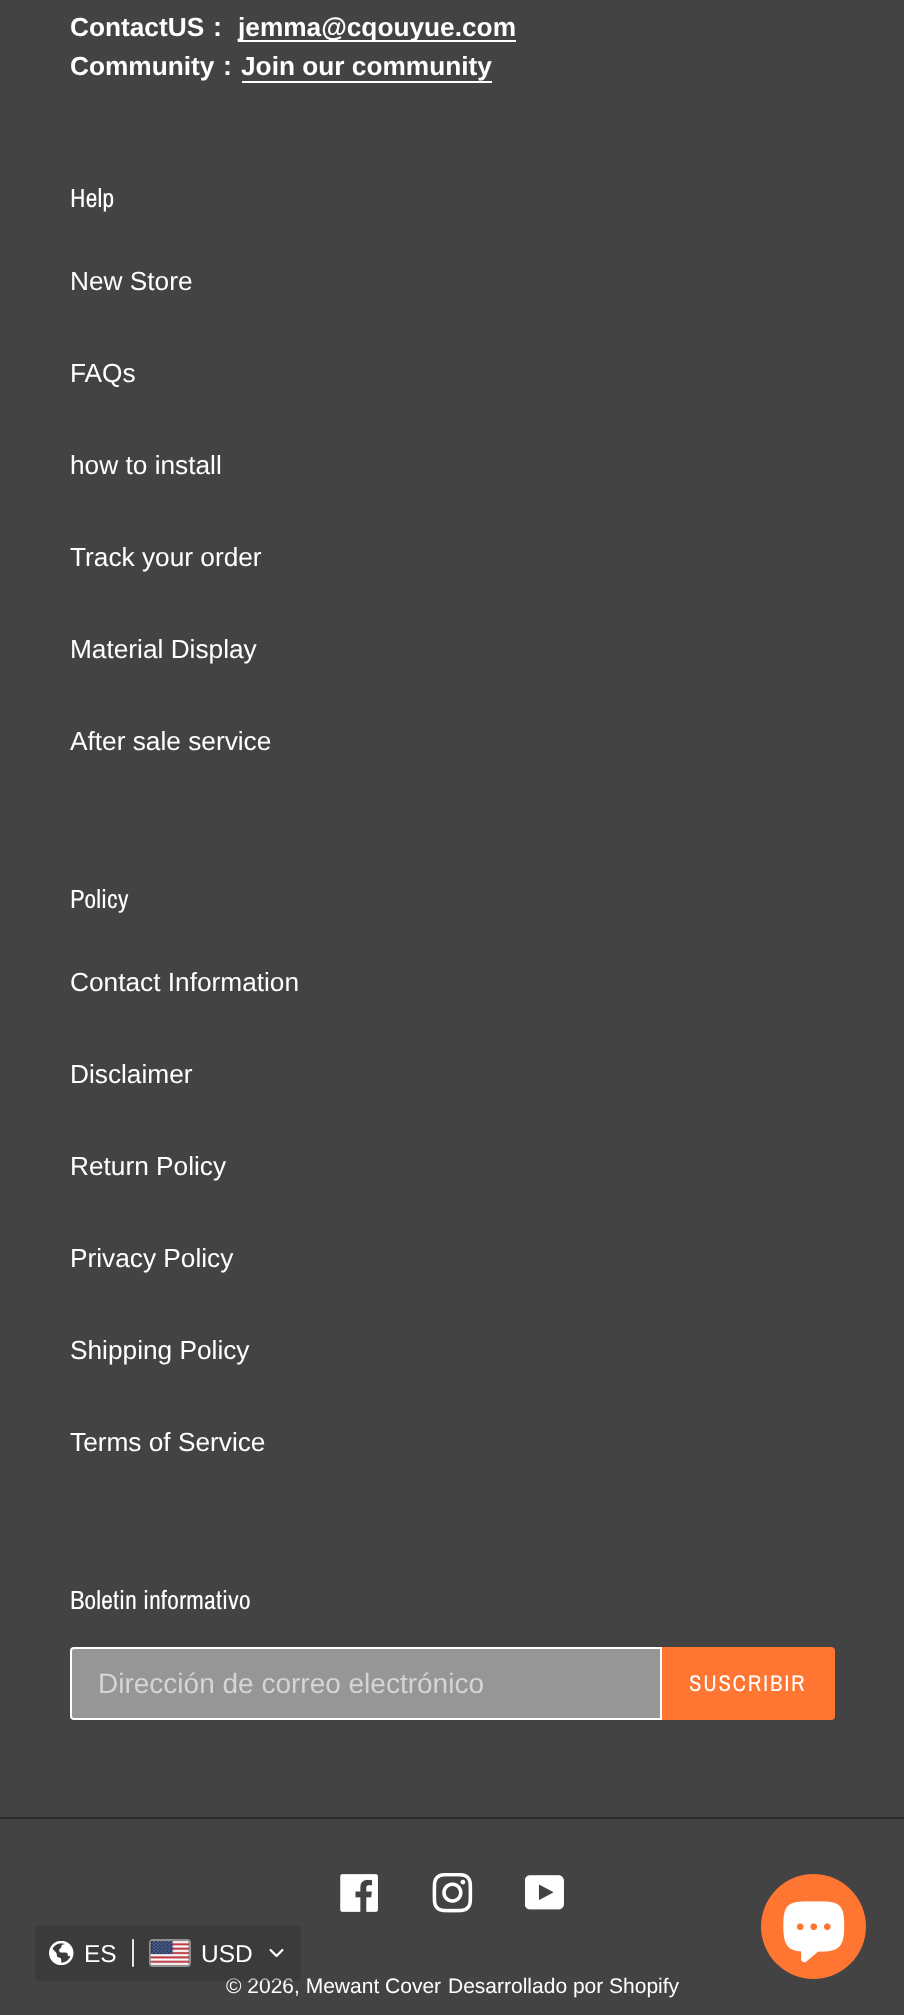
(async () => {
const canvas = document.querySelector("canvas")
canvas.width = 904
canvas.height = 2015
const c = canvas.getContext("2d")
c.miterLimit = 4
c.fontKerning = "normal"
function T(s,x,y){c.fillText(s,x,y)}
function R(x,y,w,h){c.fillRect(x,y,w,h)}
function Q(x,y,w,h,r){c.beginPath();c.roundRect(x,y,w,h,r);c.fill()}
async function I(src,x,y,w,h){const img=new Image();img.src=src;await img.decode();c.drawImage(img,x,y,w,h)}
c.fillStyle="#434343"
R(0,0,904,2015)
c.font="bold 26.25px Liberation Sans"
c.fillStyle="#fff"
T("ContactUS",70,36)
c.font="bold 26.25px WenQuanYi Zen Hei"
T("：",204,36)
R(238,40,278,2)
c.font="bold 26.25px Liberation Sans"
T("jemma@cqouyue.com",238,36)
T("Community",70,75)
c.font="bold 26.25px WenQuanYi Zen Hei"
T("：",214,75)
c.font="bold 26.25px Liberation Sans"
T("Join our community",241,75)
R(242,81,250,2)
c.font="26.25px Archivo Narrow"
T("Help",70,207)
c.font="26.25px Liberation Sans"
T("New Store",70,290)
T("FAQs",70,382)
T("how to install",70,474)
T("Track your order",70,566)
T("Material Display",70,658)
T("After sale service",70,750)
c.font="26.25px Archivo Narrow"
T("Policy",70,908)
c.font="26.25px Liberation Sans"
T("Contact Information",70,991)
T("Disclaimer",70,1083)
T("Return Policy",70,1175)
T("Privacy Policy",70,1267)
T("Shipping Policy",70,1359)
T("Terms of Service",70,1451)
c.font="26.25px Archivo Narrow"
T("Boletin informativo",70,1609)
c.fillStyle="#969696"
c.beginPath()
c.roundRect(71,1648,590,71,[3,0,0,3])
c.fill()
c.strokeStyle="#fff"
c.lineWidth=2
c.stroke()
c.font="28px Liberation Sans"
c.fillStyle="#d5d5d5"
T("Dirección de correo electrónico",98,1693)
c.fillStyle="#ff7632"
c.beginPath()
c.roundRect(662,1647,173,73,[0,4,4,0])
c.fill()
c.letterSpacing="1.75px"
c.font="22.75px Archivo Narrow"
c.fillStyle="#fff"
T("SUSCRIBIR",689,1691)
c.fillStyle="#2a2a2a"
R(0,1817,904,2)
await I("1.png",340,1874,38,38)
await I("2.png",432,1873,41,40)
await I("3.png",525,1875,39,35)
c.letterSpacing="0px"
c.font="21px Liberation Sans"
c.fillStyle="#fff"
T("© 2026, Mewant Cover",226,1993)
T("Desarrollado por Shopify",448,1993)
c.fillStyle="#ff7632"
c.beginPath()
c.arc(813.5,1926.5,52.5,0,7)
c.fill()
await I("4.png",783,1901,62,62)
c.fillStyle="#30303066"
Q(35,1925,266,56,4)
await I("5.png",49,1941,25,24)
c.font="24.5px Liberation Sans"
c.fillStyle="#fff"
T("ES",84,1962)
await I("6.png",132,1939,2,28)
c.beginPath()
c.roundRect(150,1940,40,26,3)
c.strokeStyle="#8e8f90"
c.stroke()
await I("7.png",150,1941,39,24)
T("USD",201,1962)
await I("8.png",269,1949,15,8)
})()
